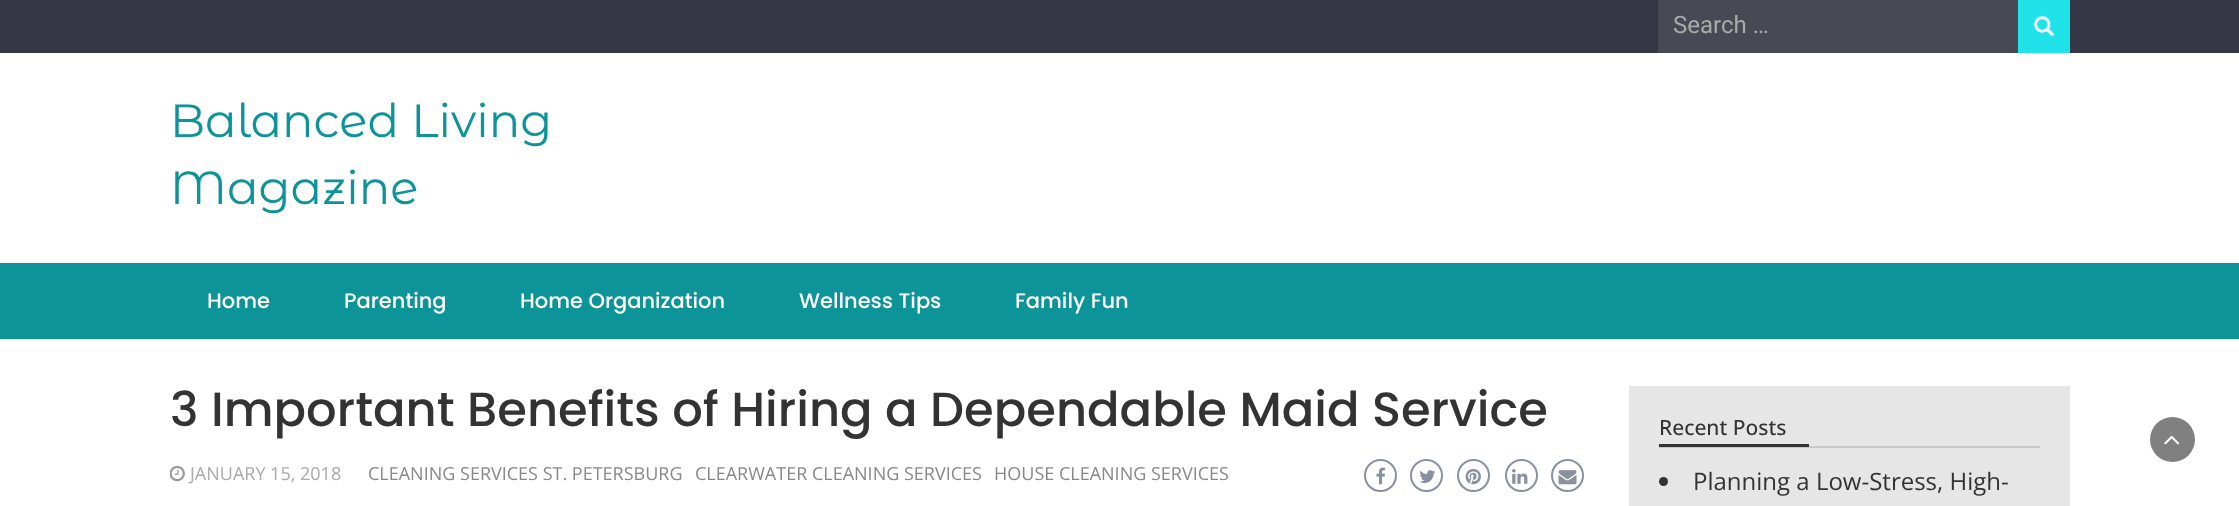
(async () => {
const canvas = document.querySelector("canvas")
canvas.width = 2239
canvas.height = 506
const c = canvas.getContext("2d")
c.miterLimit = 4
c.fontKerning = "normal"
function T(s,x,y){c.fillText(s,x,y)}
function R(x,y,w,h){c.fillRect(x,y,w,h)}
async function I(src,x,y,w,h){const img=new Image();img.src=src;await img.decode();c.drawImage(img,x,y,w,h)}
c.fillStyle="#fff"
R(0,0,2239,506)
c.fillStyle="#353844"
R(0,0,2239,53)
c.fillStyle="#474a55"
R(1658,0,360,53)
c.font="24px Roboto"
c.fillStyle="#aaa"
T("Search …",1673,33)
c.fillStyle="#20e3ea"
R(2018,0,52,53)
await I("1.png",2033,15,22,22)
c.font="46.5px Montserrat Alternates"
c.fillStyle="#0c9499"
T("Balanced Living",170,137)
T("Magazine",170,204)
R(0,263,2239,76)
c.font="500 21px Poppins"
c.fillStyle="#fff"
T("Home",207,308)
T("Parenting",344,308)
T("Home Organization",520,308)
T("Wellness Tips",799,308)
T("Family Fun",1015,308)
c.font="500 48px Poppins"
c.fillStyle="#333"
T("3 Important Benefits of Hiring a Dependable Maid Service",170,426)
await I("2.png",170,465,15,17)
c.font="18px Open Sans"
c.fillStyle="#aaa"
T("JANUARY 15, 2018",190,480)
c.fillStyle="#888"
T("CLEANING SERVICES ST. PETERSBURG",368,480)
T("CLEARWATER CLEANING SERVICES",695,480)
T("HOUSE CLEANING SERVICES",994,480)
c.beginPath()
c.arc(1380.5,475.5,15.5,0,7)
c.strokeStyle="#8990a0"
c.lineWidth=2
c.stroke()
await I("3.png",1376,467,10,18)
c.beginPath()
c.arc(1426.5,475.5,15.5,0,7)
c.stroke()
await I("4.png",1419,470,17,13)
c.beginPath()
c.arc(1473.5,475.5,15.5,0,7)
c.stroke()
await I("5.png",1465,468,16,17)
c.beginPath()
c.arc(1521.5,475.5,15.5,0,7)
c.stroke()
await I("6.png",1512,469,16,15)
c.beginPath()
c.arc(1567.5,475.5,15.5,0,7)
c.stroke()
await I("7.png",1558,470,19,15)
c.fillStyle="#e6e6e6"
R(1629,386,441,120)
c.fillStyle="#c8c8c8"
R(1659,446,381,2)
c.font="500 21px Open Sans"
c.fillStyle="#333"
T("Recent Posts",1659,435)
R(1659,444,150,3)
c.beginPath()
c.arc(1663.5,481.5,4.5,0,7)
c.fill()
c.font="24px Open Sans"
T("Planning a Low-Stress, High-",1693,490)
c.fillStyle="#808080"
c.beginPath()
c.arc(2172.5,439.5,22.5,0,7)
c.fill()
await I("8.png",2164,435,16,10)
})()
